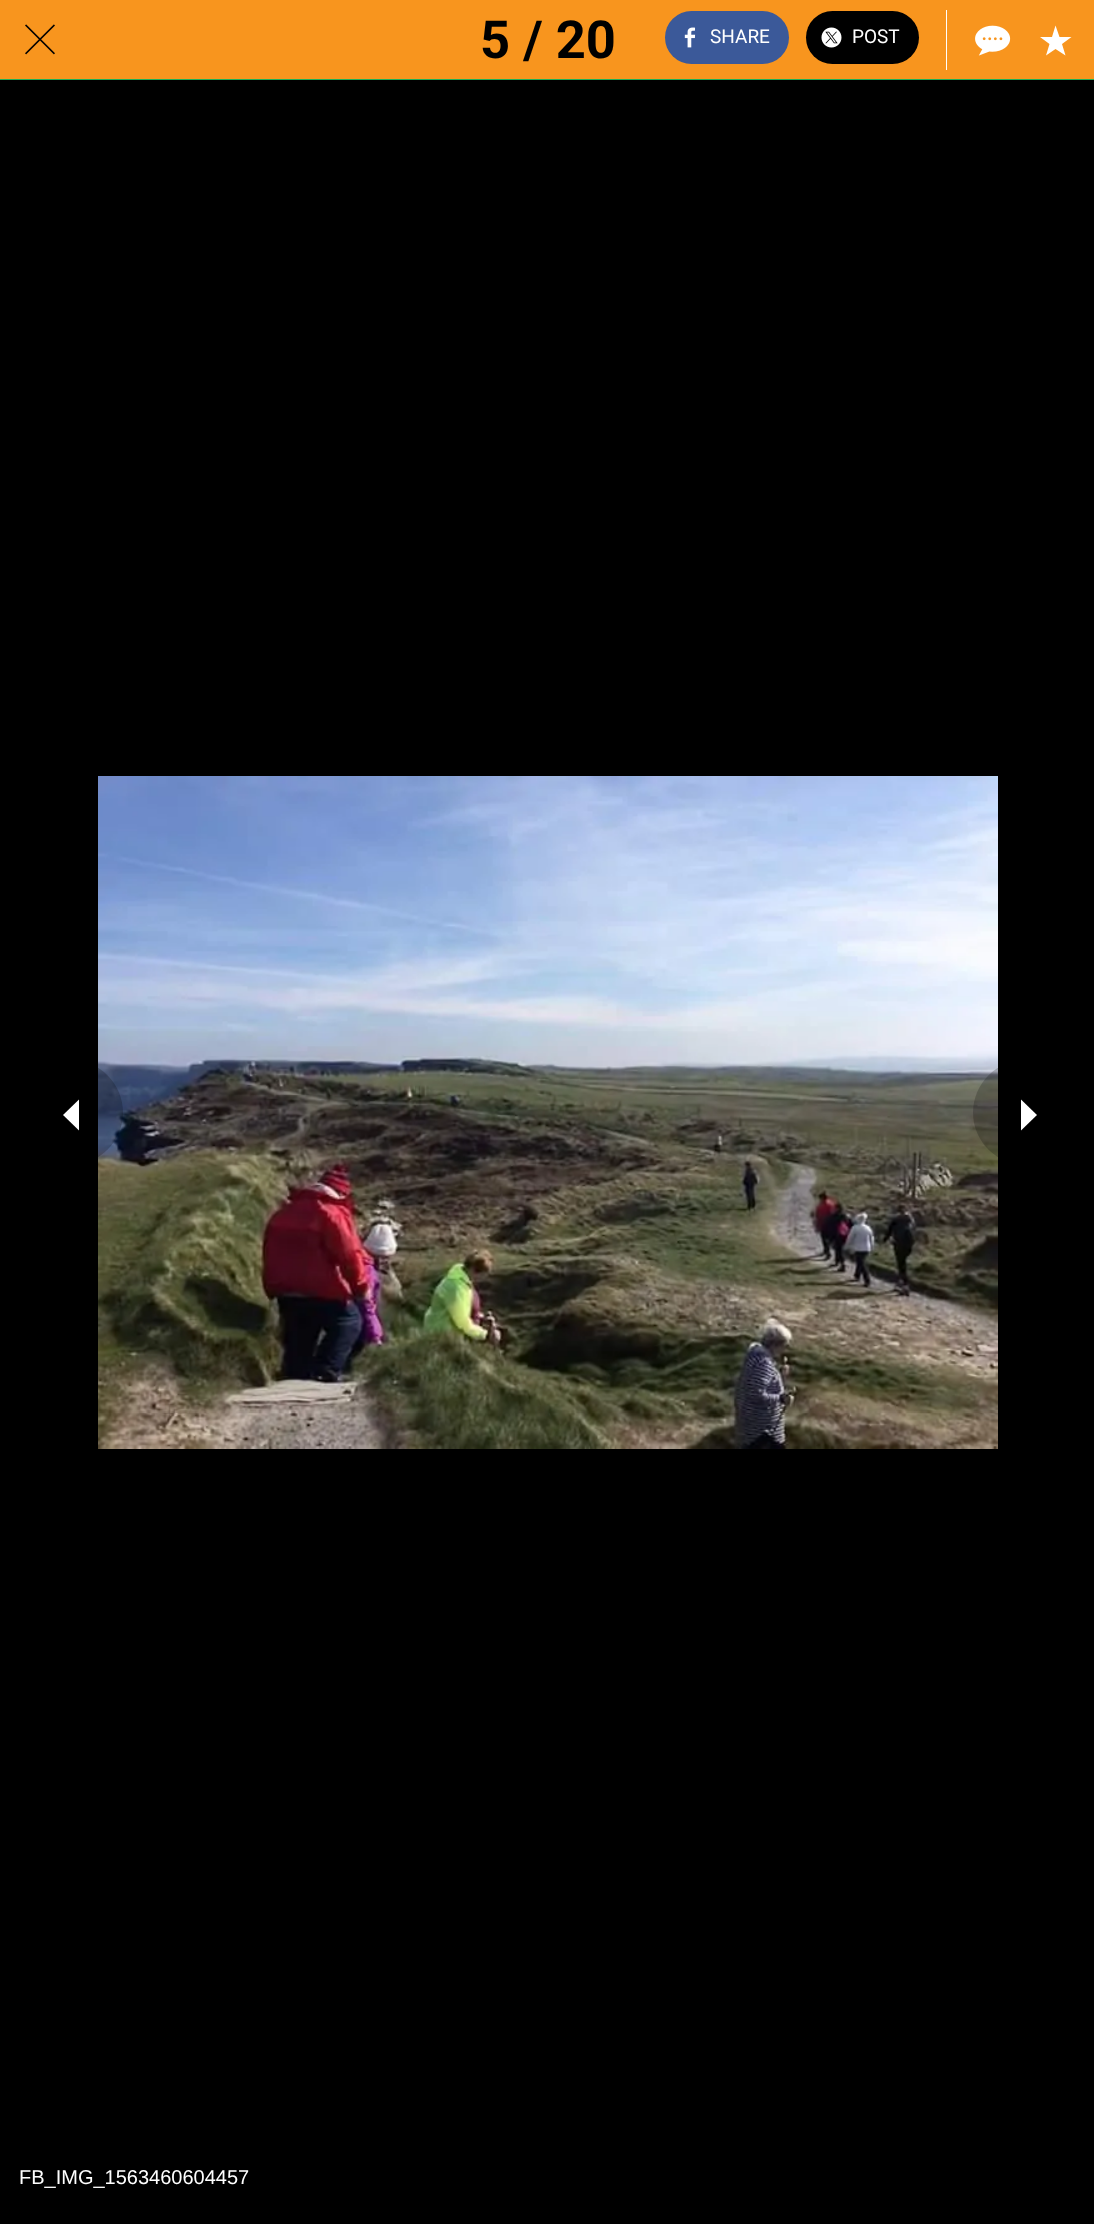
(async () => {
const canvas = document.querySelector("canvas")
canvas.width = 1094
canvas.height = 2224
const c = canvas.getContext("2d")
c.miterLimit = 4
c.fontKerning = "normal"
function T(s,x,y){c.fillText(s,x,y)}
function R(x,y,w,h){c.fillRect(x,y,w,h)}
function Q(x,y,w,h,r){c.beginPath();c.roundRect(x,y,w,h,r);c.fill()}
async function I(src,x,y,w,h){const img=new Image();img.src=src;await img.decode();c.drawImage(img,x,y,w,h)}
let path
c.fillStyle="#000"
R(0,0,1094,2224)
c.fillStyle="#f8951e"
R(0,0,1094,79)
c.fillStyle="#21ad54"
R(0,79,1094,1)
await I("1.png",25,24,30,31)
c.font="bold 52.5px Roboto"
c.fillStyle="#000"
T("5 / 20",480,58)
c.fillStyle="#3b5999"
Q(665,11,124,53,26.5)
await I("2.png",684,27,12,21)
c.font="19px Roboto"
c.fillStyle="#fff"
T("SHARE",710,43)
R(946,10,1,60)
c.fillStyle="#000"
Q(806,11,113,53,26.5)
await I("3.png",821,27,21,21)
c.fillStyle="#fff"
T("POST",852,43)
await I("4.png",975,25,36,31)
path = new Path2D("M1071.5 37h-12l-4-11.5l-3.5 11.5h-12l9.5 7l-3.5 11.5l9.5-6.5l10 6.5l-3.5-11.5z")
c.fill(path)
await I("5.png",98,776,900,673)
c.fillStyle="#00000033"
c.beginPath()
c.arc(70.5,1112.5,52.5,0,7)
c.fill()
c.fillStyle="#fff"
path = new Path2D("M79 1099.5l-16 15.5l16 15.5z")
c.fill(path)
c.fillStyle="#00000033"
c.beginPath()
c.arc(1025.5,1112.5,52.5,0,7)
c.fill()
c.fillStyle="#fff"
path = new Path2D("M1021 1130.5l16-15.5l-16-15.5z")
c.fill(path)
c.font="20px Liberation Sans"
T("FB_IMG_1563460604457",19,2184)
})()
